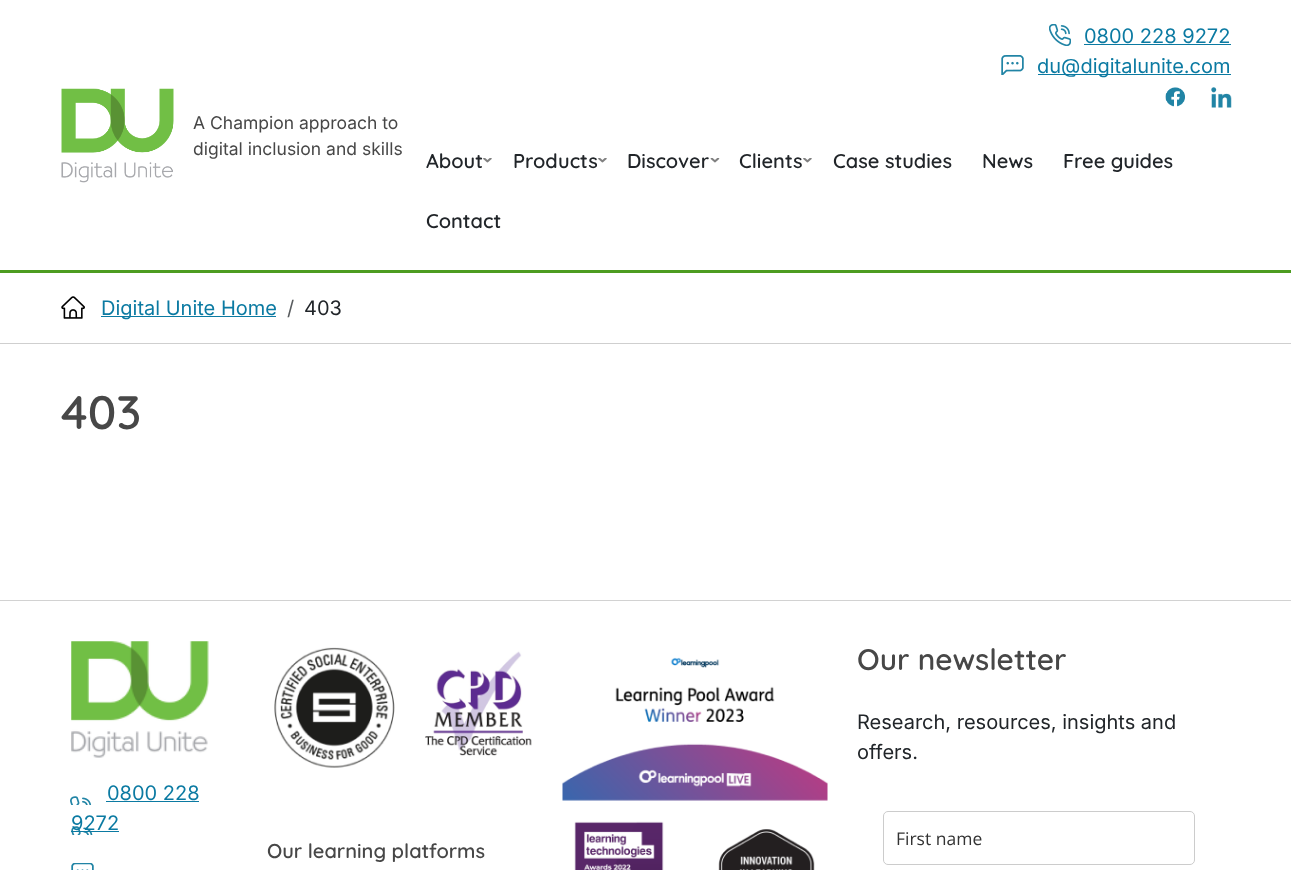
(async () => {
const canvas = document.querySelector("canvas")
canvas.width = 1291
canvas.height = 870
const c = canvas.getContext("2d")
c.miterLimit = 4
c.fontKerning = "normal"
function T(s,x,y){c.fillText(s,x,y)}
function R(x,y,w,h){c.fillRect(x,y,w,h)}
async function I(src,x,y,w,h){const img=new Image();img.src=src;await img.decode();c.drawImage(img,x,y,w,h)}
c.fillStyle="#fff"
R(0,0,1291,870)
c.fillStyle="#4d9c20"
R(0,270,1291,3)
await I("1.png",61,88,113,95)
c.font="17.5px Inter"
c.fillStyle="#474747"
T("A Champion approach to",193,129)
T("digital inclusion and skills",193,155)
await I("2.png",1049,24,22,22)
c.font="20px Inter"
c.fillStyle="#0b7aa2"
T("0800 228 9272",1084,43)
R(1084,44,147,1)
await I("3.png",1001,55,23,20)
R(1038,74,193,1)
T("du@digitalunite.com",1037,73)
await I("4.png",1165,87,20,20)
await I("5.png",1211,87,21,21)
c.font="600 20px Quicksand"
c.fillStyle="#212529"
T("About",426,168)
await I("6.png",483,158,9,5)
T("Products",513,168)
await I("6.png",598,158,9,5)
T("Discover",627,168)
await I("7.png",710,158,10,5)
T("Clients",739,168)
await I("6.png",803,158,9,5)
T("Case studies",833,168)
T("News",982,168)
T("Free guides",1063,168)
T("Contact",426,228)
c.fillStyle="#cfcfcf"
R(0,343,1291,1)
await I("8.png",61,296,24,23)
c.fillStyle="#0b7aa2"
R(101,316,175,1)
c.font="20px Inter"
T("Digital Unite Home",101,315)
c.fillStyle="#595c5f"
T("/",287,315)
c.fillStyle="#212529"
T("403",304,315)
c.font="600 47px Quicksand"
c.fillStyle="#474747"
T("403",61,429)
c.fillStyle="#d2d2d2"
R(0,600,1291,1)
await I("9.png",71,641,138,117)
c.font="20px Inter"
c.fillStyle="#0b7aa2"
T("0800 228",107,800)
R(106,801,93,1)
await I("10.png",70,796,23,39)
T("9272",71,830)
R(71,831,48,1)
await I("11.png",71,863,23,7)
await I("12.png",562,657,266,213)
c.font="600 29.75px Quicksand"
c.fillStyle="#474747"
T("Our newsletter",857,670)
c.font="20px Inter"
c.fillStyle="#212529"
T("Research, resources, insights and",857,729)
T("offers.",857,759)
c.beginPath()
c.roundRect(883.5,811.5,311,53,4.5)
c.strokeStyle="#ccc"
c.stroke()
c.font="17.5px Open Sans"
c.fillStyle="#333"
T("First name",896,845)
await I("13.png",274,647,258,121)
c.font="600 20px Quicksand"
c.fillStyle="#474747"
T("Our learning platforms",267,858)
})()
